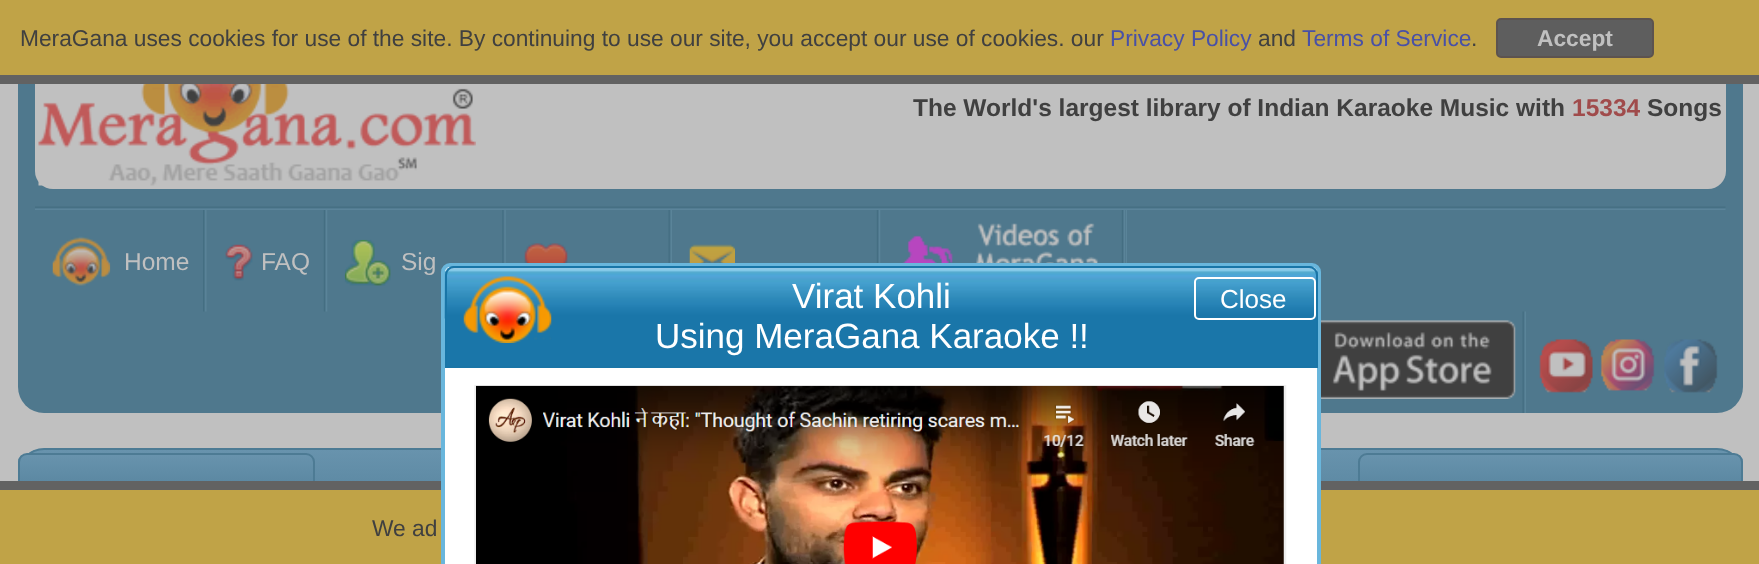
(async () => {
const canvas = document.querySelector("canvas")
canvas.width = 1759
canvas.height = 564
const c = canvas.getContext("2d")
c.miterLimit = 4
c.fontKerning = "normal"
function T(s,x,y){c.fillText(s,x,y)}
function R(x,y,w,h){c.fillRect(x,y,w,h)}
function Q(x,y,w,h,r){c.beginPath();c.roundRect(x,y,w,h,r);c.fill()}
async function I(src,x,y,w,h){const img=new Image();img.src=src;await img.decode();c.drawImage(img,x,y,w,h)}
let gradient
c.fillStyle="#c0c0c0"
R(0,0,1759,564)
c.fillStyle="#4f788d"
c.beginPath()
c.roundRect(18,0,1725,413,[0,0,26,26])
c.fill()
c.fillStyle="#c0c0c0"
Q(35,18,1691,171,18)
c.fillStyle="#c0a347"
R(0,0,1759,75)
c.fillStyle="#626262"
R(0,75,1759,9)
c.font="22.75px Liberation Sans"
c.fillStyle="#404040"
T("MeraGana uses cookies for use of the site. By continuing to use our site, you accept our use of cookies. our",20,46)
c.fillStyle="#4951a6"
T("Privacy Policy",1110,46)
c.fillStyle="#404040"
T("and",1258,46)
c.fillStyle="#4951a6"
T("Terms of Service",1302,46)
c.fillStyle="#404040"
T(".",1471,46)
c.fillStyle="#5e5e5e"
c.beginPath()
c.roundRect(1497,19,156,38,4)
c.fill()
c.strokeStyle="#5c534f"
c.lineWidth=2
c.stroke()
c.font="bold 22.75px Liberation Sans"
c.fillStyle="#c0c0c0"
T("Accept",1537,46)
await I("1.png",38,84,438,102)
c.font="bold 24.5px Liberation Sans"
c.fillStyle="#404040"
T("The World's largest library of Indian Karaoke Music with",913,116)
c.fillStyle="#a04b4b"
T("15334",1572,116)
c.fillStyle="#404040"
T("Songs",1647,116)
await I("2.png",35,206,1691,4)
await I("3.png",203,210,4,102)
await I("4.png",52,236,59,50)
c.font="24.5px Liberation Sans"
c.fillStyle="#c0c0c0"
T("Home",124,270)
await I("5.png",323,210,5,102)
await I("6.png",225,244,28,37)
T("FAQ",261,270)
await I("7.png",502,210,4,53)
await I("8.png",344,239,47,47)
T("Sig",401,270)
await I("9.png",668,210,4,53)
await I("10.png",524,243,44,20)
await I("11.png",876,210,5,53)
await I("12.png",689,244,46,19)
await I("13.png",1121,210,5,53)
await I("14.png",902,235,51,28)
await I("15.png",976,223,122,40)
await I("16.png",1126,210,1,53)
await I("17.png",1321,320,195,79)
await I("18.png",1522,311,4,102)
await I("19.png",1539,339,54,54)
await I("20.png",1600,339,55,52)
await I("21.png",1664,339,54,54)
c.save()
c.beginPath()
c.roundRect(18,448,1725,74,[26,26,0,0])
c.clip()
gradient = c.createLinearGradient(19,450,19,520)
gradient.addColorStop(0,"#6893ad")
gradient.addColorStop(1,"#53819b")
c.fillStyle = gradient
R(28,450,1705,31)
c.restore()
c.beginPath()
c.roundRect(19,449,1723,72,[25,25,0,0])
c.strokeStyle="#4d7b94"
c.stroke()
c.save()
c.beginPath()
c.roundRect(18,453,297,49,[9,9,0,0])
c.clip()
gradient = c.createLinearGradient(19,455,19,501)
gradient.addColorStop(0,"#6893ad")
gradient.addColorStop(1,"#53819b")
c.fillStyle = gradient
R(18,455,297,26)
c.restore()
c.beginPath()
c.roundRect(19,454,295,47,[8,8,0,0])
c.stroke()
c.save()
c.beginPath()
c.roundRect(1358,453,385,49,[9,9,0,0])
c.clip()
gradient = c.createLinearGradient(1360,455,1360,501)
gradient.addColorStop(0,"#6893ad")
gradient.addColorStop(1,"#53819b")
c.fillStyle = gradient
R(1358,455,385,26)
c.restore()
c.beginPath()
c.roundRect(1359,454,383,47,[8,8,0,0])
c.stroke()
c.fillStyle="#c0a347"
R(0,490,1759,74)
c.fillStyle="#626262"
R(0,481,1759,9)
c.fillStyle="#fff"
c.beginPath()
c.roundRect(443,265,876,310,7)
c.fill()
c.strokeStyle="#69b6dc"
c.lineWidth=4
c.stroke()
c.fillStyle="#1a76a9"
c.beginPath()
c.roundRect(445,266,873,102,[9,9,0,0])
c.fill()
await I("22.png",444,267,874,52)
c.beginPath()
c.roundRect(446,267,871,100,[8,8,0,0])
c.strokeStyle="#1975a7"
c.lineWidth=2
c.stroke()
await I("23.png",463,276,89,67)
c.font="35px Liberation Sans"
c.fillStyle="#fff"
T("Virat Kohli",792,308)
c.beginPath()
c.roundRect(1195,278,120,41,4)
c.strokeStyle="#fff"
c.stroke()
c.font="26px Liberation Sans"
T("Close",1220,308)
c.font="35px Liberation Sans"
T("Using MeraGana Karaoke !!",655,348)
await I("24.png",474,385,813,179)
c.font="22.75px Liberation Sans"
c.fillStyle="#404040"
T("We ad",372,536)
})()
